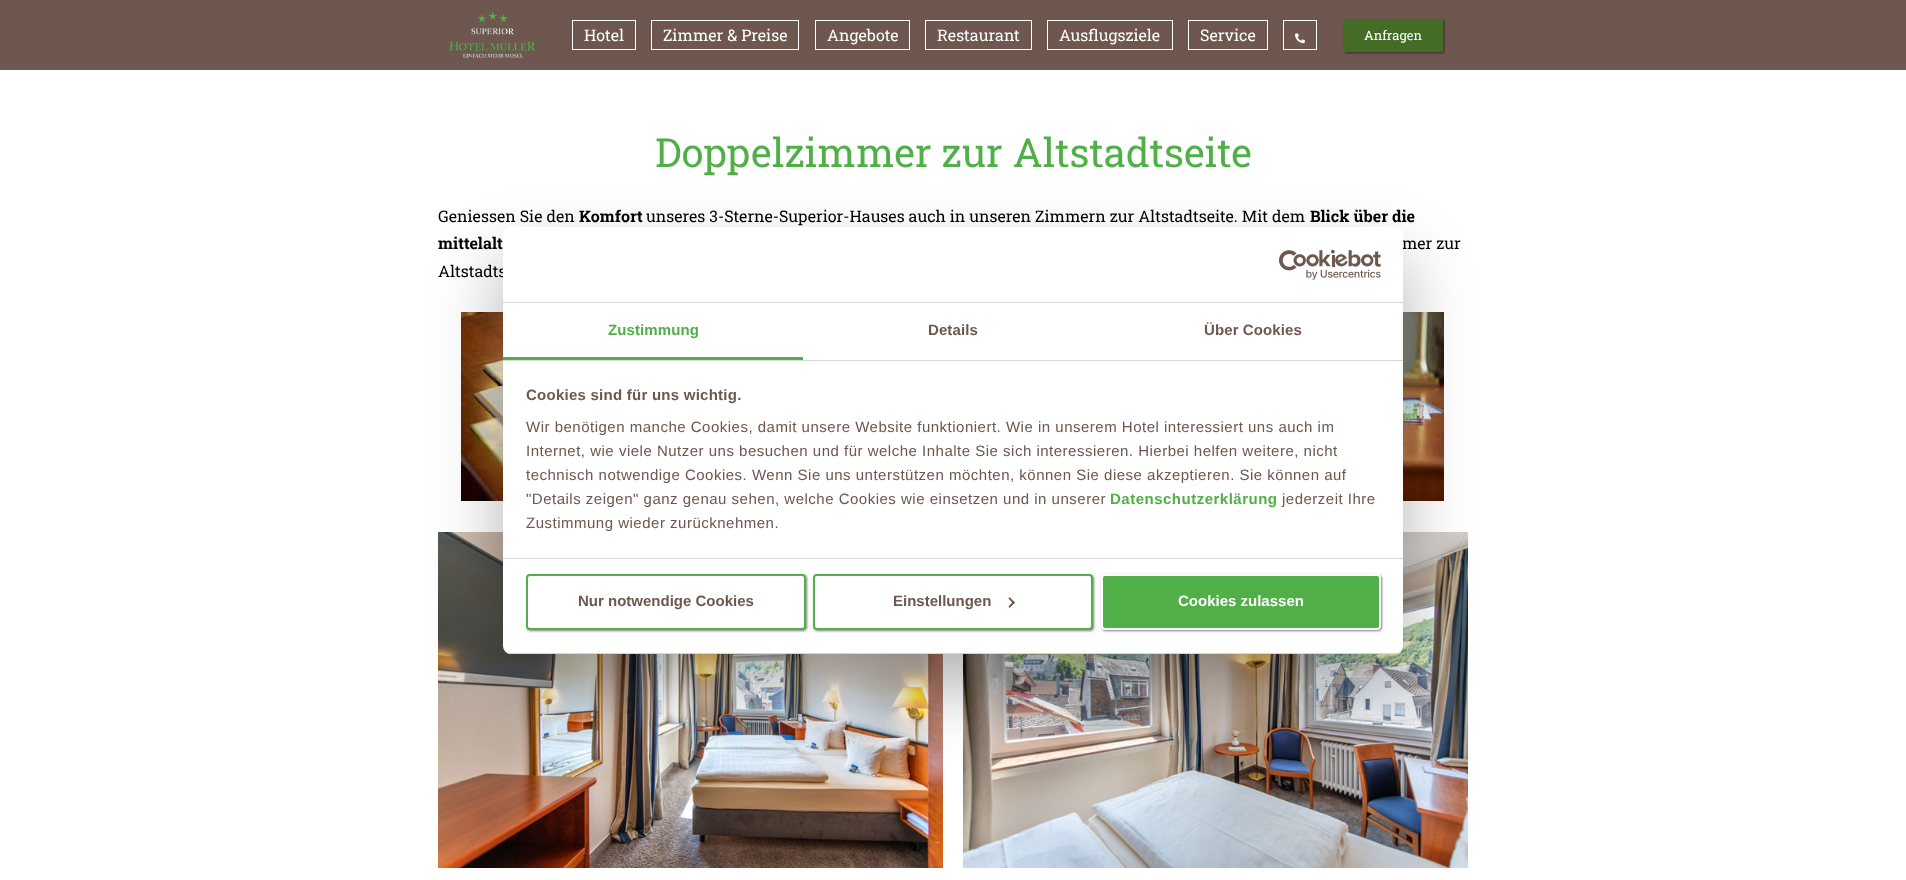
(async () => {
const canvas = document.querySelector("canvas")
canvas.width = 1906
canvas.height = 880
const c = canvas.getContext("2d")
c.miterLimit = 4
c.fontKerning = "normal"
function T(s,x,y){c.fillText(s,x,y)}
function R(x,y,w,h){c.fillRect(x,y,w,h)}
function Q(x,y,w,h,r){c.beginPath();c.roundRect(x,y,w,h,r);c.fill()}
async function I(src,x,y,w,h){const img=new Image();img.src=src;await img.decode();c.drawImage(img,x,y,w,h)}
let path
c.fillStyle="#fff"
R(0,0,1906,880)
c.fillStyle="#6d574f"
R(0,0,1906,70)
await I("1.png",449,11,87,47)
c.strokeStyle="#fff"
c.strokeRect(572.5,20.5,63,29)
c.font="16px Roboto Slab"
c.fillStyle="#fff"
T("Hotel",584,41)
c.strokeRect(651.5,20.5,147,29)
T("Zimmer & Preise",663,41)
c.strokeRect(815.5,20.5,94,29)
T("Angebote",827,41)
c.strokeRect(925.5,20.5,106,29)
T("Restaurant",937,41)
c.strokeRect(1047.5,20.5,125,29)
T("Ausflugsziele",1059,41)
c.strokeRect(1188.5,20.5,79,29)
T("Service",1200,41)
c.strokeRect(1283.5,20.5,33,29)
await I("2.png",1295,33,10,11)
c.fillStyle="#00000080"
c.filter="blur(1px)"
c.beginPath()
c.rect(1345,20,99,33)
c.fill()
c.filter="none"
c.fillStyle="#456c27"
R(1344,19,99,33)
c.font="13px Roboto Slab"
c.fillStyle="#fff"
T("Anfragen",1364,40)
c.font="40px Roboto Slab"
c.fillStyle="#51af48"
T("Doppelzimmer zur Altstadtseite",655,167)
c.font="16px Roboto Slab"
c.fillStyle="#000"
T("Geniessen Sie den",438,222)
c.font="bold 16px Roboto Slab"
T("Komfort",579,222)
c.font="16px Roboto Slab"
T("unseres 3-Sterne-Superior-Hauses auch in unseren Zimmern zur Altstadtseite. Mit dem",646,222)
c.font="bold 16px Roboto Slab"
T("Blick über die",1310,222)
T("mittelalt",438,249)
c.font="16px Roboto Slab"
T("mer zur",1402,249)
T("Altstadts",438,277)
await I("3.png",461,312,42,189)
await I("4.png",1403,312,41,189)
await I("5.png",438,532,505,336)
await I("6.png",963,532,505,336)
c.fillStyle="#0000004d"
c.filter="blur(34px)"
c.beginPath()
c.roundRect(503,259,900,427,8)
c.fill()
c.filter="none"
c.fillStyle="#fff"
Q(503,227,900,427,8)
c.fillStyle="#d6d6d6"
R(503,302,900,1)
await I("7.png",1279,250,102,30)
R(503,360,900,1)
c.fillStyle="#51af48"
R(503,357,300,3)
c.letterSpacing="0.1px"
c.font="bold 15px Liberation Sans"
T("Zustimmung",608,335)
c.fillStyle="#6d574f"
T("Details",928,335)
T("Über Cookies",1204,335)
c.fillStyle="#d6d6d6"
R(503,558,900,1)
c.letterSpacing="0.25px"
c.fillStyle="#6d574f"
T("Cookies sind für uns wichtig.",526,400)
c.letterSpacing="0.5px"
c.font="15px Liberation Sans"
T("Wir benötigen manche Cookies, damit unsere Website funktioniert. Wie in unserem Hotel interessiert uns auch im",526,432)
T("Internet, wie viele Nutzer uns besuchen und für welche Inhalte Sie sich interessieren. Hierbei helfen weitere, nicht",526,456)
T("technisch notwendige Cookies. Wenn Sie uns unterstützen möchten, können Sie diese akzeptieren. Sie können auf",526,480)
T("\"Details zeigen\" ganz genau sehen, welche Cookies wie einsetzen und in unserer",526,504)
c.font="bold 15px Liberation Sans"
c.fillStyle="#51af48"
T("Datenschutzerklärung",1110,504)
c.font="15px Liberation Sans"
c.fillStyle="#6d574f"
T("jederzeit Ihre",1282,504)
T("Zustimmung wieder zurücknehmen.",526,528)
c.save()
c.beginPath()
c.roundRect(503,227,900,427,8)
c.clip()
c.fillStyle="#d6d6d6"
R(503,653,900,1)
c.restore()
c.fillStyle="#00000080"
c.filter="blur(1px)"
c.beginPath()
c.roundRect(527,575,280,56,4)
c.fill()
c.filter="none"
c.fillStyle="#fff"
c.beginPath()
c.roundRect(527,575,278,54,3)
c.fill()
c.strokeStyle="#51af48"
c.lineWidth=2
c.stroke()
c.letterSpacing="0px"
c.font="bold 15px Liberation Sans"
c.fillStyle="#6d574f"
T("Nur notwendige Cookies",578,606)
c.fillStyle="#00000080"
c.filter="blur(1px)"
c.beginPath()
c.roundRect(814,575,280,56,4)
c.fill()
c.filter="none"
c.fillStyle="#fff"
c.beginPath()
c.roundRect(814,575,278,54,3)
c.fill()
c.stroke()
c.fillStyle="#6d574f"
T("Einstellungen",893,606)
path = new Path2D("M1009.5 597l5.5 5.5l-1.5 1.5l-5-5.5z")
c.fill(path)
path = new Path2D("M1013.5 601l1.5 1.5l-5.5 5.5l-1-1.5z")
c.fill(path)
c.fillStyle="#00000080"
c.filter="blur(1px)"
c.beginPath()
c.roundRect(1102,575,280,56,4)
c.fill()
c.filter="none"
c.fillStyle="#51af48"
c.beginPath()
c.roundRect(1102,575,278,54,3)
c.fill()
c.strokeStyle="#fff"
c.stroke()
c.fillStyle="#fff"
T("Cookies zulassen",1178,606)
})()
